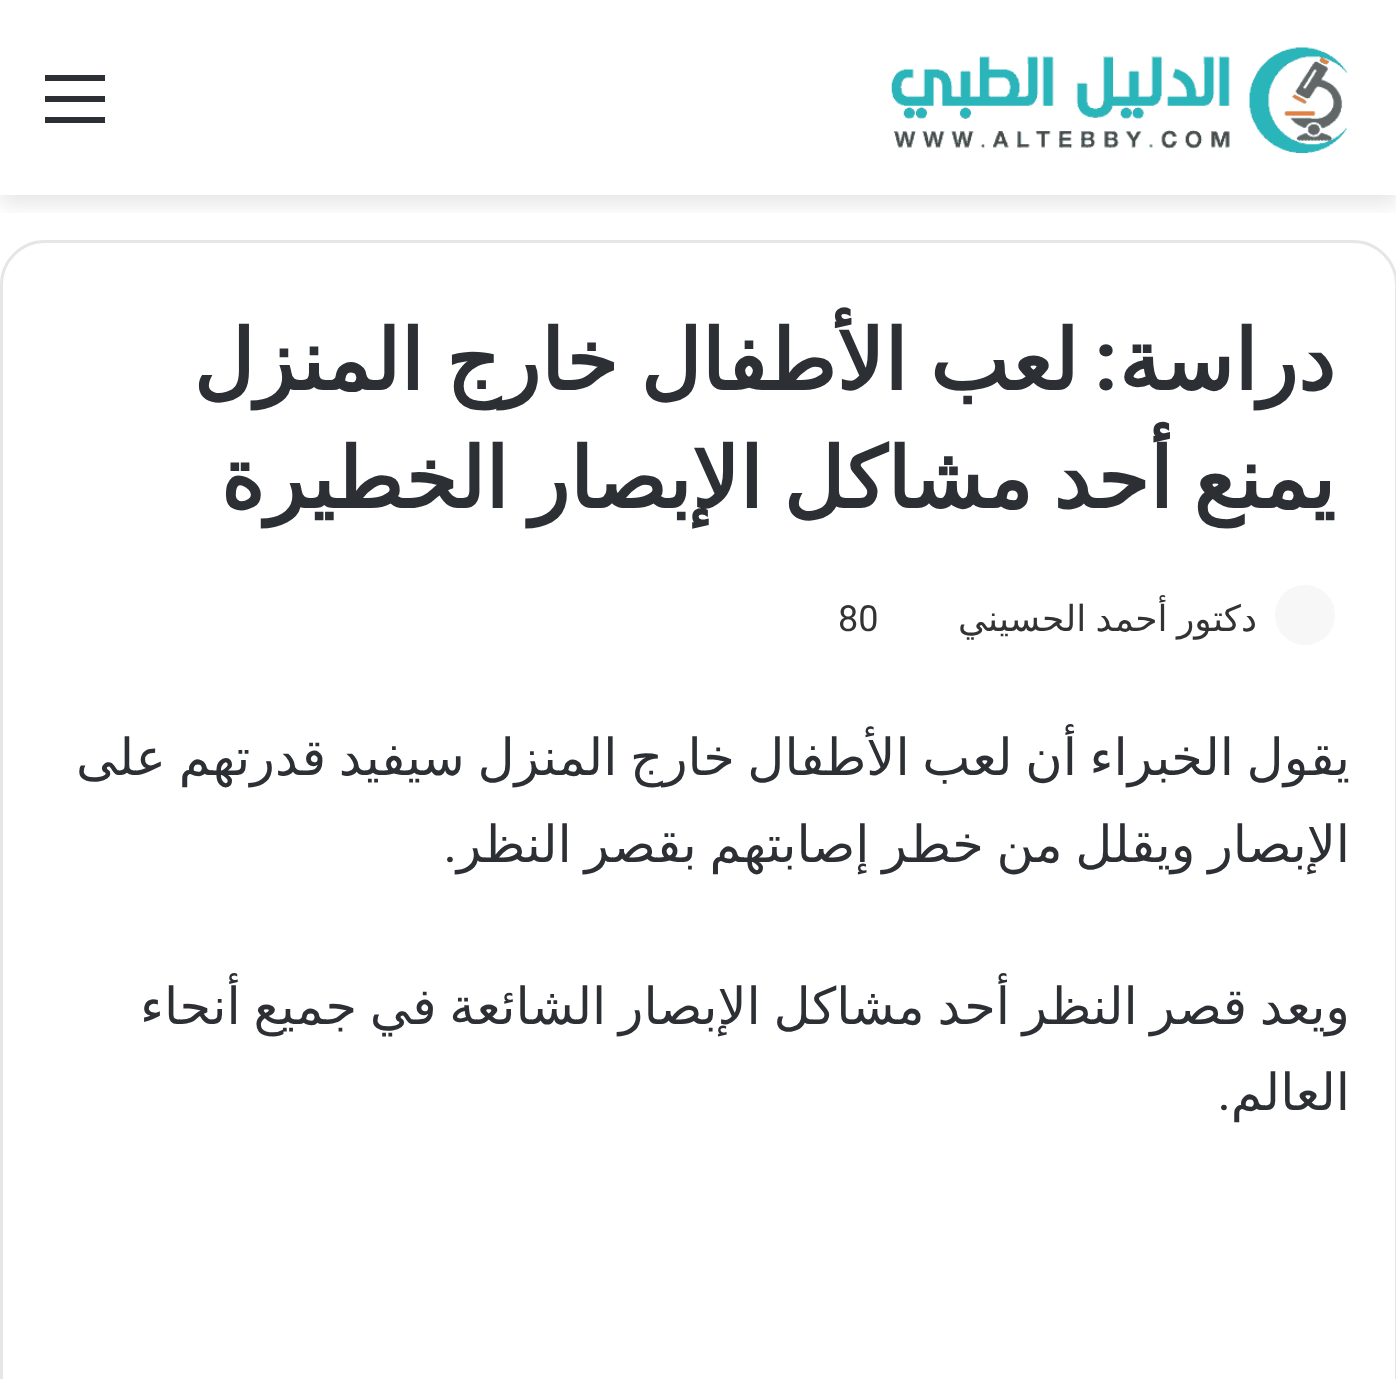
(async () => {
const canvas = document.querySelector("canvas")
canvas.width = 1396
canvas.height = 1379
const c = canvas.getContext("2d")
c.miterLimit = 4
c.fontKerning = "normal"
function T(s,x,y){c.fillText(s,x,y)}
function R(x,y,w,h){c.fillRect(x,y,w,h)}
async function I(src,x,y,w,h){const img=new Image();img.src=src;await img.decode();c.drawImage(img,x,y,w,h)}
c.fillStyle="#fff"
R(0,0,1396,1379)
c.save()
c.beginPath()
c.rect(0,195,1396,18)
c.clip()
c.fillStyle="#0000001a"
c.filter="blur(10.5px)"
c.beginPath()
c.rect(0,9,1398,195)
c.fill()
c.filter="none"
c.restore()
await I("1.png",891,47,457,106)
c.fillStyle="#2c2f34"
R(45,96,60,6)
R(45,75,60,6)
R(45,117,60,6)
c.beginPath()
c.roundRect(1.5,241.5,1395,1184,43.5)
c.strokeStyle="#e6e6e6"
c.lineWidth=3
c.stroke()
c.direction="rtl"
c.font="bold 84px DejaVu Sans"
T("دراسة",1335,390)
c.font="bold 84px Roboto"
T(":",1118,390)
c.wordSpacing="-4.5px"
c.font="bold 84px DejaVu Sans"
T("لعب الأطفال خارج المنزل",1078,390)
c.wordSpacing="-6px"
T("يمنع أحد مشاكل الإبصار الخطيرة",1335,508)
c.fillStyle="#f7f7f7"
c.beginPath()
c.arc(1305,615,30,0,7)
c.fill()
c.wordSpacing="-2px"
c.font="36px DejaVu Sans"
c.fillStyle="#333"
T("دكتور أحمد الحسيني",1257,631)
c.wordSpacing="0px"
c.direction="ltr"
c.font="36px Roboto"
T("80",838,631)
c.wordSpacing="-3.5px"
c.direction="rtl"
c.font="51px DejaVu Sans"
c.fillStyle="#2c2f34"
T("يقول الخبراء أن لعب الأطفال خارج المنزل سيفيد قدرتهم على",1350,775)
T("الإبصار ويقلل من خطر إصابتهم بقصر النظر",1350,862)
c.wordSpacing="0px"
c.font="51px Roboto"
T(".",457,862)
c.wordSpacing="-3.5px"
c.font="51px DejaVu Sans"
T("ويعد قصر النظر أحد مشاكل الإبصار الشائعة في جميع أنحاء",1350,1024)
c.wordSpacing="0px"
T("العالم",1350,1110)
c.font="51px Roboto"
T(".",1231,1110)
})()
